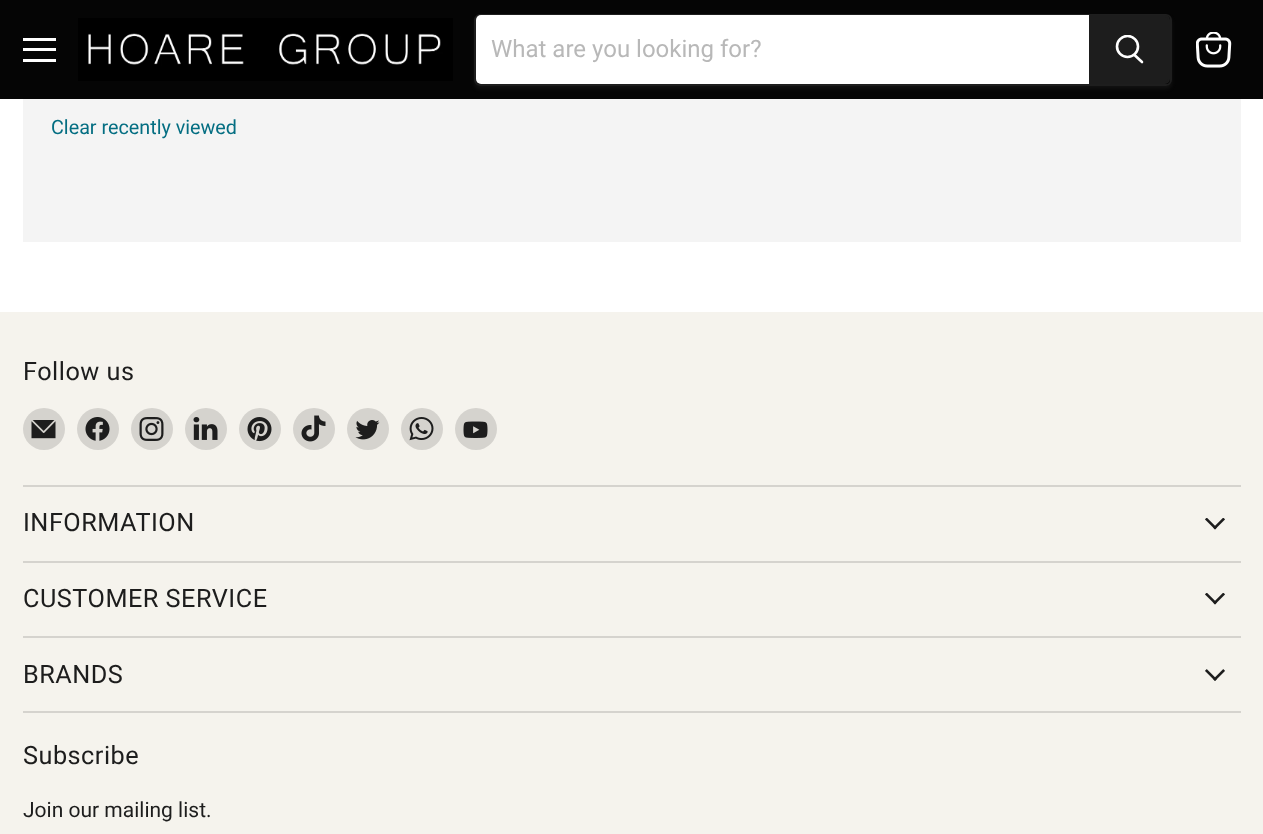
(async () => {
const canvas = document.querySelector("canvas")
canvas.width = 1263
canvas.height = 834
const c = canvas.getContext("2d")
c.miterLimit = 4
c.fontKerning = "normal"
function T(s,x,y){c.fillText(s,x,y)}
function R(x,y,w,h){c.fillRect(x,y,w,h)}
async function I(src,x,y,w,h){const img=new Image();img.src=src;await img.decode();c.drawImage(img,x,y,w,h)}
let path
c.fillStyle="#fff"
R(0,0,1263,834)
c.fillStyle="#050505"
R(0,0,1263,99)
c.fillStyle="#fff"
R(23,38,33,3)
R(23,48,33,3)
R(23,59,33,3)
await I("1.png",78,18,375,63)
c.save()
path = new Path2D("M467 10h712v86h-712zm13 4h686c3.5 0 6 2.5 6 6v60c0 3.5-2.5 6-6 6h-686c-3.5 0-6-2.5-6-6v-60c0-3.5 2.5-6 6-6z")
c.clip(path,"evenodd")
c.fillStyle="#8080801c"
c.filter="blur(2px)"
c.beginPath()
c.roundRect(474,17,698,72,6)
c.fill()
c.filter="none"
c.restore()
c.beginPath()
c.roundRect(475,15,696,70,5)
c.strokeStyle="#80808033"
c.lineWidth=2
c.stroke()
c.beginPath()
c.roundRect(476,15,613,69,[5,0,0,5])
c.fill()
c.font="24px Roboto"
c.fillStyle="#b8b8b8"
T("What are you looking for?",491,57)
c.fillStyle="#1d1d1d"
c.beginPath()
c.roundRect(1090,16,79,67,[0,4,4,0])
c.fill()
c.strokeStyle="#1d1d1d"
c.stroke()
path = new Path2D("M1142 62l-7.5-7")
c.strokeStyle="#fff"
c.lineWidth=2.6
c.lineCap="round"
c.stroke(path)
c.save()
c.beginPath()
c.rect(1115,35,30,31)
c.clip()
c.beginPath()
c.arc(1127.5,46.5,10.5,0,7)
c.stroke()
c.restore()
await I("2.png",1196,32,36,36)
c.fillStyle="#f4f4f4"
R(23,99,1218,143)
c.font="19.75px Roboto"
c.fillStyle="#046e82"
T("Clear recently viewed",51,134)
c.fillStyle="#f5f3ed"
R(0,312,1263,522)
c.fillStyle="#d5d3ce"
R(23,485,1218,2)
c.letterSpacing="0.5px"
c.font="25.25px Roboto"
c.fillStyle="#1d1d1d"
T("Follow us",23,380)
c.fillStyle="#d5d3ce"
c.beginPath()
c.arc(44,429,21,0,7)
c.fill()
await I("3.png",31,420,25,19)
c.beginPath()
c.arc(98,429,21,0,7)
c.fill()
await I("4.png",85,417,25,24)
c.beginPath()
c.arc(152,429,21,0,7)
c.fill()
await I("5.png",139,417,25,24)
c.beginPath()
c.arc(206,429,21,0,7)
c.fill()
await I("6.png",193,417,25,23)
c.beginPath()
c.arc(260,429,21,0,7)
c.fill()
await I("7.png",247,417,25,25)
c.beginPath()
c.arc(314,429,21,0,7)
c.fill()
await I("8.png",301,415,25,27)
c.beginPath()
c.arc(368,429,21,0,7)
c.fill()
await I("9.png",355,420,25,20)
c.beginPath()
c.arc(422,429,21,0,7)
c.fill()
await I("10.png",409,417,25,24)
c.beginPath()
c.arc(476,429,21,0,7)
c.fill()
await I("11.png",463,421,25,17)
R(23,561,1218,2)
c.fillStyle="#1d1d1d"
T("INFORMATION",23,531)
await I("12.png",1205,518,20,12)
c.fillStyle="#d5d3ce"
R(23,636,1218,2)
c.fillStyle="#1d1d1d"
T("CUSTOMER SERVICE",23,607)
await I("12.png",1205,593,20,12)
c.fillStyle="#d5d3ce"
R(23,711,1218,2)
c.fillStyle="#1d1d1d"
T("BRANDS",23,683)
await I("13.png",1205,669,20,12)
T("Subscribe",23,764)
c.letterSpacing="0px"
c.font="21px Roboto"
T("Join our mailing list.",23,817)
})()
